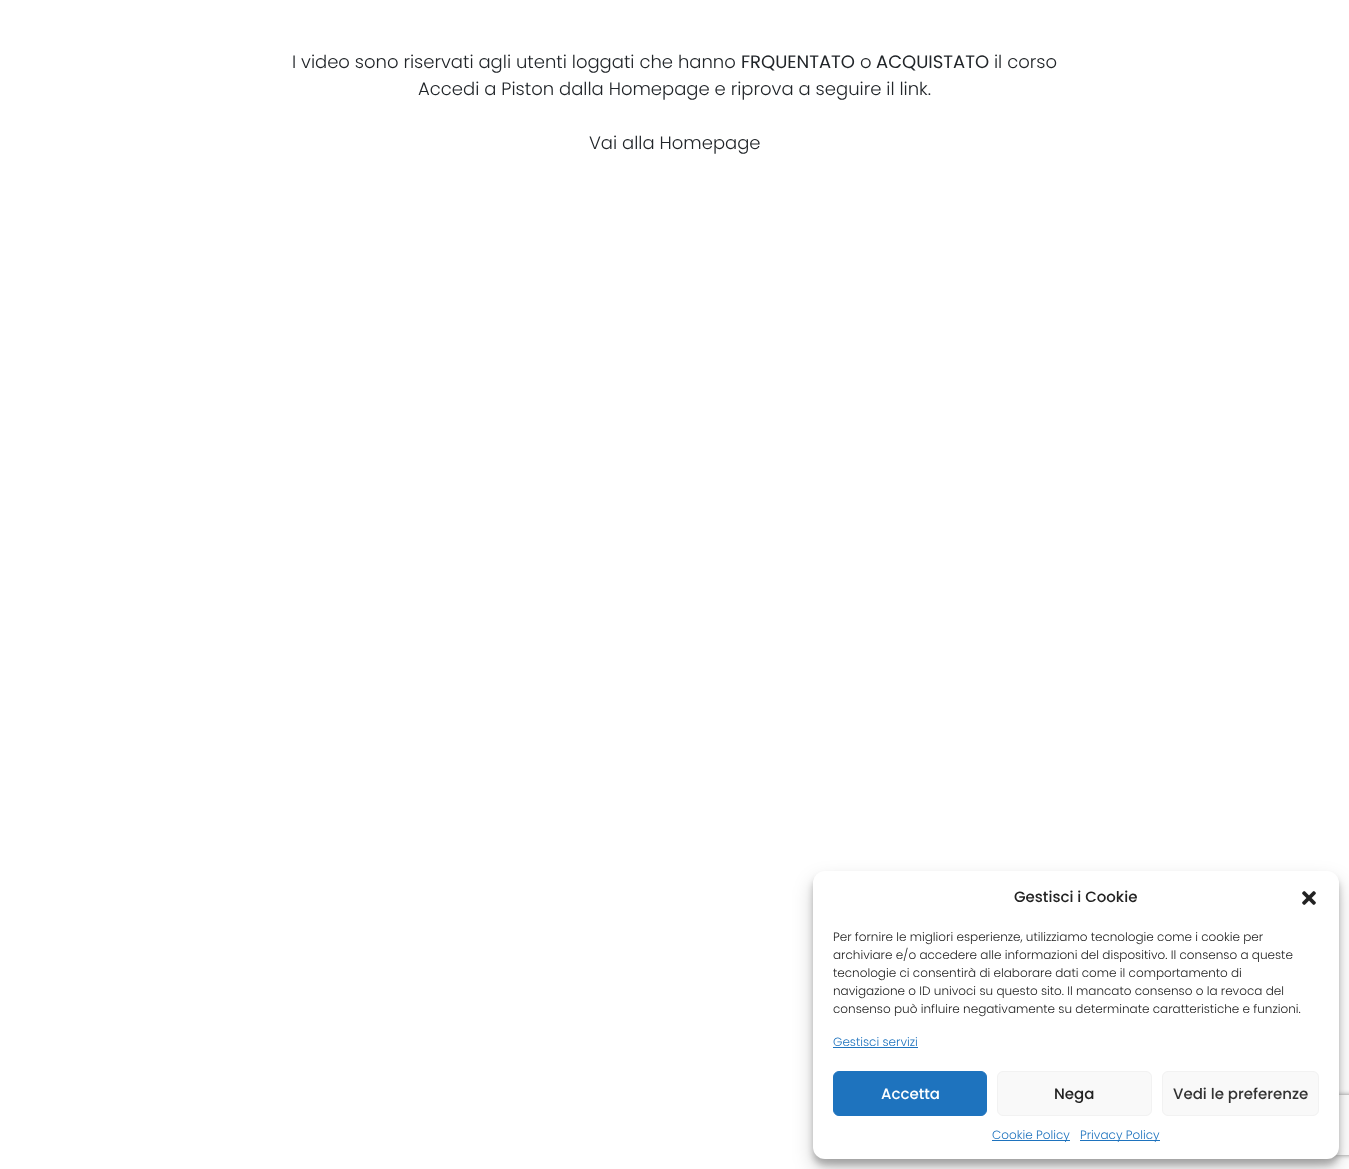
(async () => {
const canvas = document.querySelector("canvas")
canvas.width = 1349
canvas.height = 1169
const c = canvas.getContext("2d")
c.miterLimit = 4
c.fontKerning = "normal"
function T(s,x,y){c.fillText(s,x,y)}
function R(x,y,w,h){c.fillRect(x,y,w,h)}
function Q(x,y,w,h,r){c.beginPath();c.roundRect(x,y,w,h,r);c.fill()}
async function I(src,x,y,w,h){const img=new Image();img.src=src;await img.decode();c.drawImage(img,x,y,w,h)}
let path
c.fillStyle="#fff"
R(0,0,1349,1169)
c.font="300 18px Poppins"
c.fillStyle="#212529"
T("I video sono riservati agli utenti loggati che hanno",292,68)
c.font="18px Poppins"
T("FRQUENTATO",741,68)
c.font="300 18px Poppins"
T("o",860,68)
c.font="18px Poppins"
T("ACQUISTATO",876,68)
c.font="300 18px Poppins"
T("il corso",994,68)
T("Accedi a Piston dalla Homepage e riprova a seguire il link.",418,95)
T("Vai alla Homepage",589,149)
c.fillStyle="#0000003b"
c.filter="blur(3px)"
c.beginPath()
c.roundRect(813,877,526,288,12)
c.fill()
c.filter="none"
c.fillStyle="#00000030"
c.filter="blur(10px)"
c.beginPath()
c.roundRect(813,881,526,288,12)
c.fill()
c.filter="none"
c.save()
path = new Path2D("M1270 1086h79v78h-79zm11 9h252c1 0 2 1 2 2v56c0 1-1 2-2 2h-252c-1 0-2-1-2-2v-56c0-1 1-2 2-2z")
c.clip(path,"evenodd")
c.fillStyle="#808080"
c.filter="blur(2.5px)"
c.beginPath()
c.roundRect(1279,1095,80,60,2)
c.fill()
c.filter="none"
c.restore()
c.fillStyle="#fff"
Q(813,871,526,288,12)
c.font="500 15px Poppins"
c.fillStyle="#222"
T("Gestisci i Cookie",1014,902)
await I("1.png",1302,891,14,14)
c.font="300 12px Poppins"
T("Per fornire le migliori esperienze, utilizziamo tecnologie come i cookie per",833,941)
T("archiviare e/o accedere alle informazioni del dispositivo. Il consenso a queste",833,959)
T("tecnologie ci consentirà di elaborare dati come il comportamento di",833,977)
T("navigazione o ID univoci su questo sito. Il mancato consenso o la revoca del",833,995)
T("consenso può influire negativamente su determinate caratteristiche e funzioni.",833,1013)
c.fillStyle="#1e73be"
T("Gestisci servizi",833,1046)
R(833,1047,85,1)
c.beginPath()
c.roundRect(833.5,1071.5,153,44,5.5)
c.fill()
c.strokeStyle="#1e73be"
c.stroke()
c.font="500 15px Poppins"
c.fillStyle="#fff"
T("Accetta",881,1099)
c.fillStyle="#f9f9f9"
c.beginPath()
c.roundRect(997.5,1071.5,154,44,5.5)
c.fill()
c.strokeStyle="#f2f2f2"
c.stroke()
c.fillStyle="#222"
T("Nega",1054,1099)
c.fillStyle="#f9f9f9"
c.beginPath()
c.roundRect(1162.5,1071.5,156,44,5.5)
c.fill()
c.stroke()
c.fillStyle="#333"
T("Vedi le preferenze",1173,1099)
c.fillStyle="#1e73be"
R(992,1140,78,1)
c.font="300 12px Poppins"
T("Cookie Policy",992,1139)
R(1080,1140,80,1)
T("Privacy Policy",1080,1139)
})()
